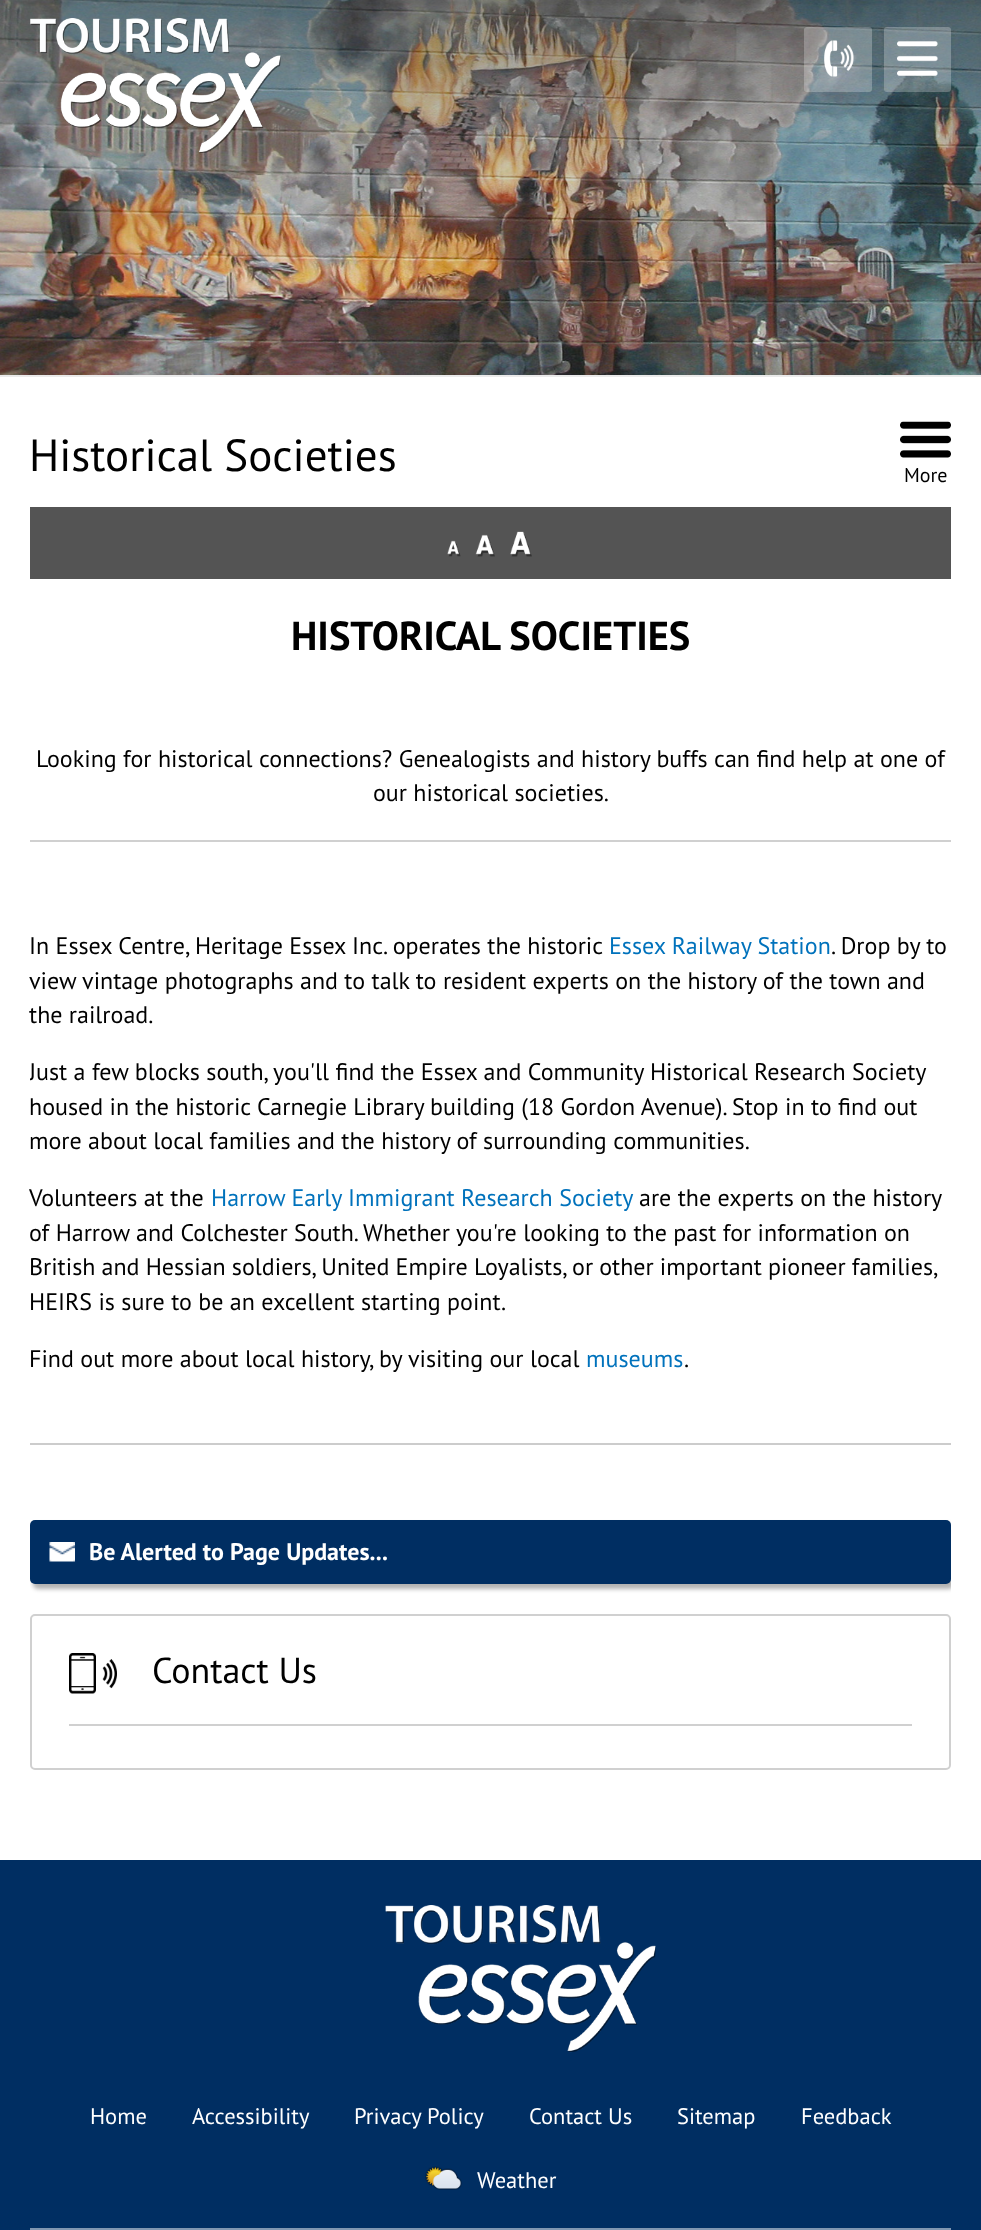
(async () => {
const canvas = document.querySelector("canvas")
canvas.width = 981
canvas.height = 2230
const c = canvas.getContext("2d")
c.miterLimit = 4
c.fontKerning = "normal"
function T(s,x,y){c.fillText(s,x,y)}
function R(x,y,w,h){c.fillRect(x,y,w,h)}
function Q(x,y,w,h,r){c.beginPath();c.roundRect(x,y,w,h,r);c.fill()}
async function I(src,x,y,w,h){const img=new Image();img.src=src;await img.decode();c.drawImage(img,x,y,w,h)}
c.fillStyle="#fff"
R(0,0,981,2230)
await I("1.png",0,0,981,375)
await I("2.png",0,0,981,360)
await I("3.png",30,18,251,136)
c.fillStyle="#ffffff40"
Q(804,27,68,65,3)
await I("4.png",824,40,30,37)
Q(884,27,67,65,3)
await I("5.png",897,41,41,35)
c.fillStyle="#eaeaea"
R(0,375,981,2)
c.font="45px PT Sans"
c.fillStyle="#000"
T("Historical Societies",29,471)
await I("6.png",900,421,51,37)
c.font="20px PT Sans"
T("More",904,482)
c.fillStyle="#545454"
R(30,507,921,72)
await I("7.png",447,540,14,17)
await I("8.png",475,534,20,23)
await I("9.png",510,531,22,26)
c.font="bold 40.5px PT Sans"
c.fillStyle="#000"
T("HISTORICAL SOCIETIES",291,650)
c.font="24px PT Sans"
T("Looking for historical connections? Genealogists and history buffs can find help at one of",36,767)
T("our historical societies.",373,801)
c.fillStyle="#d0d0d0"
R(30,840,921,2)
c.fillStyle="#000"
T("In Essex Centre, Heritage Essex Inc. operates the historic",29,954)
c.fillStyle="#0072bc"
T("Essex Railway Station",609,954)
c.fillStyle="#000"
T(". Drop by to",831,954)
T("view vintage photographs and to talk to resident experts on the history of the town and",29,989)
T("the railroad.",29,1023)
c.save()
c.beginPath()
c.rect(30,422,921,1348)
c.clip()
T("Just a few blocks south, you'll find the Essex and Community Historical Research Society",29,1080)
c.restore()
T("housed in the historic Carnegie Library building (18 Gordon Avenue). Stop in to find out",29,1115)
T("more about local families and the history of surrounding communities.",29,1149)
T("Volunteers at the",29,1206)
c.fillStyle="#0072bc"
T("Harrow Early Immigrant Research Society",211,1206)
c.fillStyle="#000"
T("are the experts on the history",639,1206)
T("of Harrow and Colchester South. Whether you're looking to the past for information on",29,1241)
c.wordSpacing="-0.25px"
T("British and Hessian soldiers, United Empire Loyalists, or other important pioneer families,",29,1275)
c.wordSpacing="0px"
T("HEIRS is sure to be an excellent starting point.",29,1310)
T("Find out more about local history, by visiting our local",29,1367)
c.fillStyle="#0072bc"
T("museums",586,1367)
c.fillStyle="#000"
T(".",684,1367)
c.fillStyle="#ccc"
R(30,1443,921,2)
c.save()
c.beginPath()
c.rect(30,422,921,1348)
c.clip()
c.fillStyle="#0000004d"
c.filter="blur(2px)"
c.beginPath()
c.roundRect(33,1524,921,65,5)
c.fill()
c.filter="none"
c.restore()
c.fillStyle="#002e62"
Q(30,1520,921,64,5)
await I("10.png",49,1542,26,20)
c.font="bold 24px PT Sans"
c.fillStyle="#fff"
T("Be Alerted to Page Updates...",89,1560)
c.beginPath()
c.roundRect(31,1615,919,154,4)
c.strokeStyle="#d0d0d0"
c.lineWidth=2
c.stroke()
await I("11.png",69,1653,48,41)
c.fillStyle="#d0d0d0"
R(69,1724,843,2)
c.font="36px PT Sans"
c.fillStyle="#000"
T("Contact Us",152,1683)
c.fillStyle="#002e62"
R(0,1860,981,370)
await I("12.png",385,1905,271,148)
c.fillStyle="#8097b1"
R(30,2228,921,2)
c.font="22.5px PT Sans"
c.fillStyle="#fff"
T("Home",90,2124)
T("Accessibility",192,2124)
T("Privacy Policy",354,2124)
T("Contact Us",529,2124)
T("Sitemap",677,2124)
T("Feedback",801,2124)
await I("13.png",425,2166,37,24)
T("Weather",477,2188)
})()
